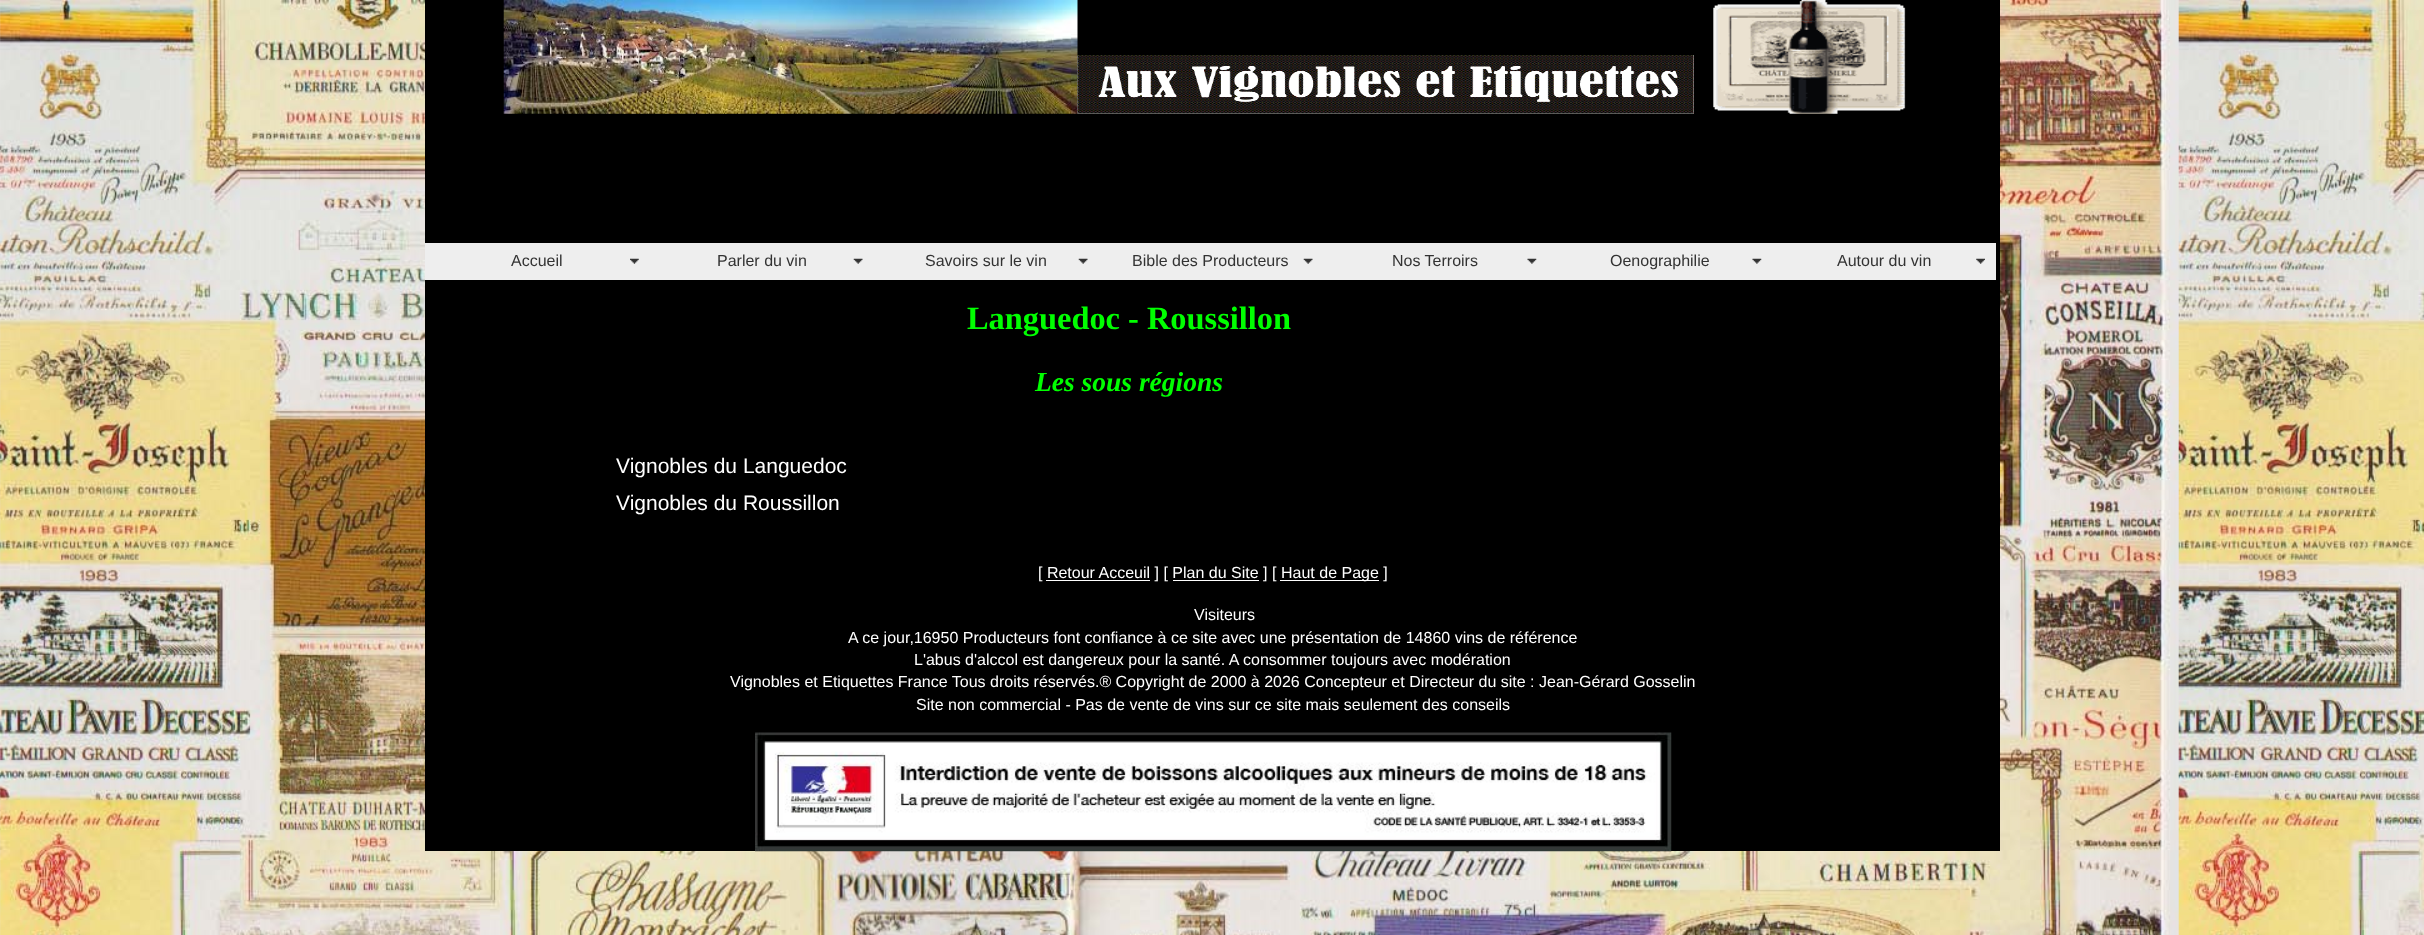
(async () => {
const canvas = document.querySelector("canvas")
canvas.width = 2424
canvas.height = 935
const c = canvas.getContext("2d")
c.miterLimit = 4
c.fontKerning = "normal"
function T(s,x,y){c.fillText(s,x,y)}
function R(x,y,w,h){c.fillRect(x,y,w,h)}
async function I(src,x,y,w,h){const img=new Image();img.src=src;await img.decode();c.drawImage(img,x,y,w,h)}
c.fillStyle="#fff"
R(0,0,2424,935)
await I("1.png",0,0,2424,935)
c.fillStyle="#000"
R(425,0,1575,851)
await I("2.png",503,0,575,114)
await I("3.png",1077,55,617,59)
await I("4.png",1713,0,193,114)
c.fillStyle="#eee"
R(425,243,1571,37)
await I("5.png",630,258,9,6)
c.font="16px Liberation Sans"
c.fillStyle="#333"
T("Accueil",511,266)
await I("6.png",853,258,10,6)
T("Parler du vin",717,266)
await I("6.png",1078,258,10,6)
T("Savoirs sur le vin",925,266)
await I("7.png",1303,258,10,6)
T("Bible des Producteurs",1132,266)
await I("8.png",1527,258,10,6)
T("Nos Terroirs",1392,266)
await I("8.png",1752,258,10,6)
T("Oenographilie",1610,266)
await I("9.png",1976,258,9,6)
T("Autour du vin",1837,266)
c.font="bold 32.4px Liberation Serif"
c.fillStyle="#0f0"
T("Languedoc - Roussillon",967,329)
c.font="italic bold 27.5px Liberation Serif"
T("Les sous régions",1035,391)
c.font="21px Liberation Sans"
c.fillStyle="#fff"
T("Vignobles du Languedoc",616,473)
T("Vignobles du Roussillon",616,510)
c.font="16px Liberation Sans"
T("[ Retour Acceuil ] [ Plan du Site ] [",1038,578)
R(1280,580,99,1)
T("Haut de Page ]",1281,578)
R(1046,580,104,1)
R(1173,580,86,1)
T("Visiteurs",1194,620)
T("A ce jour,16950 Producteurs font confiance à ce site avec une présentation de 14860 vins de référence",848,643)
T("L'abus d'alccol est dangereux pour la santé. A consommer toujours avec modération",914,665)
T("Vignobles et Etiquettes France Tous droits réservés.® Copyright de 2000 à 2026 Concepteur et Directeur du site : Jean-Gérard Gosselin",730,687)
T("Site non commercial - Pas de vente de vins sur ce site mais seulement des conseils",916,710)
await I("10.png",755,732,917,120)
})()
